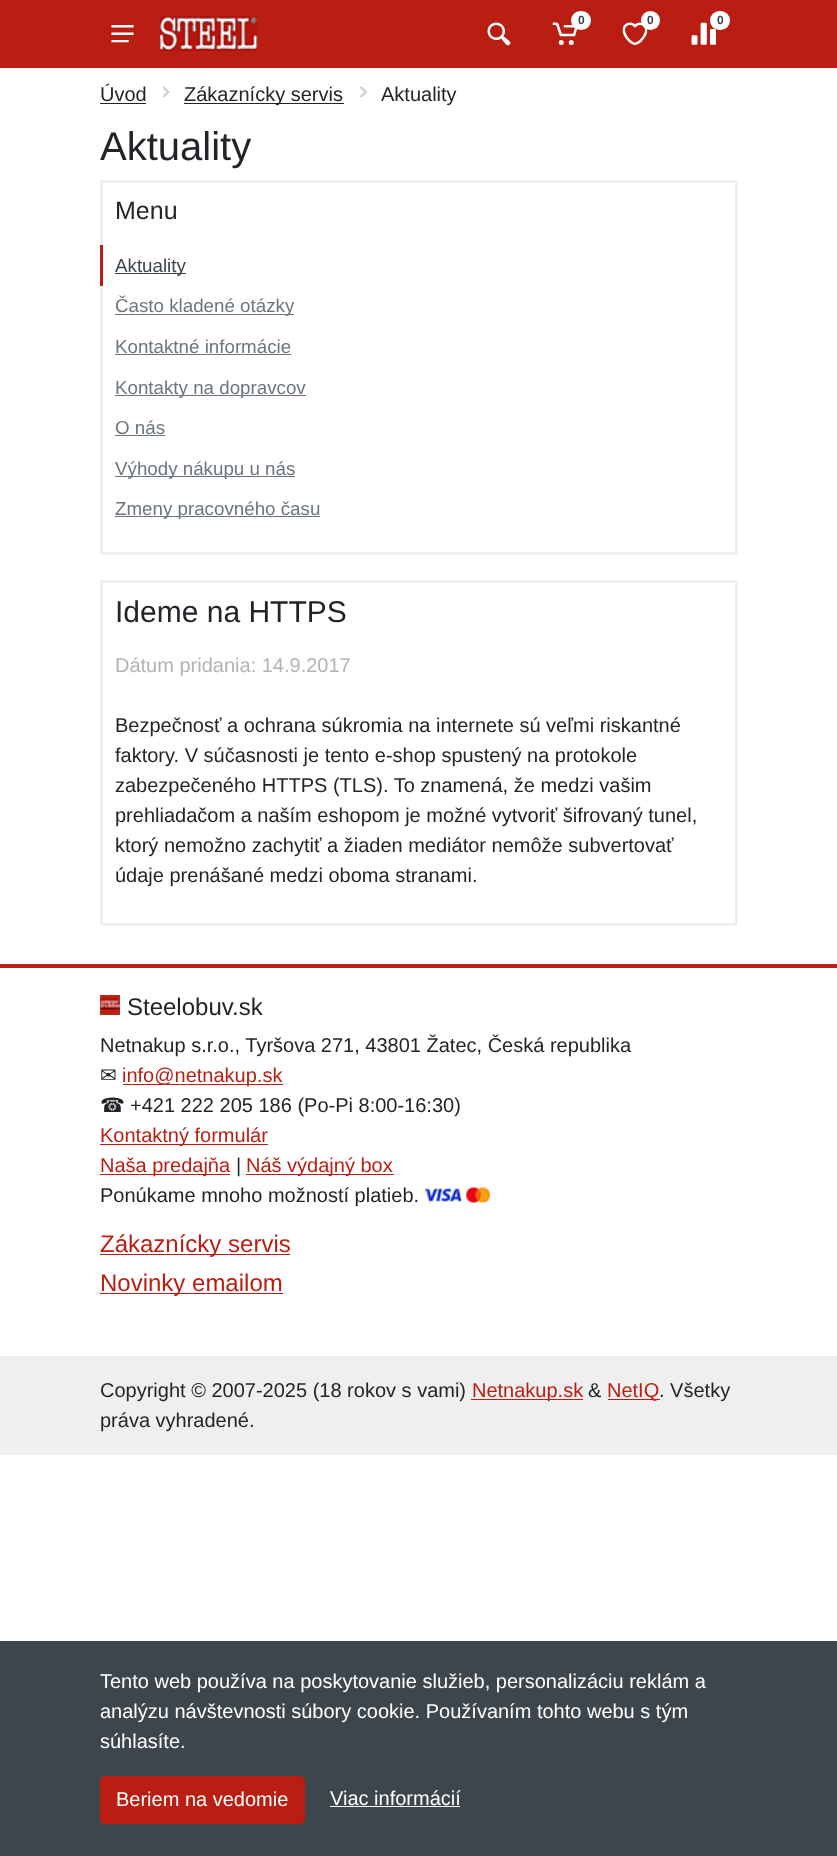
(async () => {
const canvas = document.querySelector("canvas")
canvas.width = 837
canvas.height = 1856
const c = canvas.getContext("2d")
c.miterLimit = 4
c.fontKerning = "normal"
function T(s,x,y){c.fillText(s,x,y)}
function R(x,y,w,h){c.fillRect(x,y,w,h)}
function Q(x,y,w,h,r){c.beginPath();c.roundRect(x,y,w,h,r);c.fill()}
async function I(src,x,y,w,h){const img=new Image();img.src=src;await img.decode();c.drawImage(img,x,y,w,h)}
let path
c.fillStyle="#fff"
R(0,0,837,1856)
c.fillStyle="#f5f5f5"
path = new Path2D("M0 68v1h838v-68v67z")
c.fill(path)
c.fillStyle="#ba1e12"
R(0,0,837,68)
c.fillStyle="#b31d11"
R(0,66,837,1)
await I("1.png",160,15,98,38)
await I("2.png",552,22,25,23)
c.fillStyle="#fff"
Q(571,11,20,19,9.5)
c.font="bold 12px Liberation Sans"
c.fillStyle="#3d464d"
T("0",578,24)
await I("3.png",622,22,26,23)
c.fillStyle="#fff"
c.beginPath()
c.arc(650.5,20.5,9.5,0,7)
c.fill()
c.fillStyle="#3d464d"
T("0",647,24)
await I("4.png",691,22,25,23)
c.fillStyle="#fff"
Q(710,11,20,19,9.5)
c.fillStyle="#3d464d"
T("0",717,24)
await I("5.png",487,22,24,24)
await I("6.png",111,25,23,18)
c.font="20px Liberation Sans"
c.fillStyle="#212529"
T("Úvod",100,101)
R(100,103,46,1)
await I("7.png",162,86,8,12)
R(184,103,160,1)
T("Zákaznícky servis",184,101)
await I("8.png",360,86,7,12)
T("Aktuality",381,101)
c.font="40px Liberation Sans"
T("Aktuality",100,160)
c.beginPath()
c.roundRect(101.5,181.5,635,372,1)
c.strokeStyle="#f0f0f0"
c.lineWidth=3
c.stroke()
c.font="25px Liberation Sans"
T("Menu",115,219)
c.fillStyle="#ba1e12"
R(100,245,3,41)
c.fillStyle="#3d464d"
R(115,273,71,1)
c.font="18.75px Liberation Sans"
T("Aktuality",115,272)
c.fillStyle="#6c757d"
R(115,314,179,1)
T("Často kladené otázky",115,312)
T("Kontaktné informácie",115,353)
R(115,354,176,1)
R(115,395,191,1)
T("Kontakty na dopravcov",115,394)
T("O nás",115,434)
R(115,435,50,1)
R(115,476,180,1)
T("Výhody nákupu u nás",115,475)
R(115,516,205,1)
T("Zmeny pracovného času",115,515)
c.beginPath()
c.roundRect(101.5,581.5,635,343,1)
c.stroke()
c.font="30px Liberation Sans"
c.fillStyle="#212529"
T("Ideme na HTTPS",115,622)
c.font="20px Liberation Sans"
c.fillStyle="#b3b3b3"
T("Dátum pridania: 14.9.2017",115,672)
c.fillStyle="#212529"
T("Bezpečnosť a ochrana súkromia na internete sú veľmi riskantné",115,732)
T("faktory. V súčasnosti je tento e-shop spustený na protokole",115,762)
T("zabezpečeného HTTPS (TLS). To znamená, že medzi vašim",115,792)
T("prehliadačom a naším eshopom je možné vytvoriť šifrovaný tunel,",115,822)
T("ktorý nemožno zachytiť a žiaden mediátor nemôže subvertovať",115,852)
T("údaje prenášané medzi oboma stranami.",115,882)
c.fillStyle="#ba1e12"
R(0,964,837,4)
await I("9.png",100,995,20,20)
c.font="24px Liberation Sans"
c.fillStyle="#212529"
T("Steelobuv.sk",127,1015)
c.font="20px Liberation Sans"
T("Netnakup s.r.o., Tyršova 271, 43801 Žatec, Česká republika",100,1052)
c.font="20px DejaVu Sans"
T("✉",100,1082)
c.fillStyle="#ba1e12"
R(123,1084,160,1)
c.font="20px Liberation Sans"
T("info@netnakup.sk",122,1082)
c.font="20px DejaVu Sans"
c.fillStyle="#212529"
T("☎",100,1112)
c.font="20px Liberation Sans"
T("+421 222 205 186 (Po-Pi 8:00-16:30)",130,1112)
c.fillStyle="#ba1e12"
R(100,1144,168,1)
T("Kontaktný formulár",100,1142)
R(100,1174,130,1)
T("Naša predajňa",100,1172)
c.fillStyle="#212529"
T("|",236,1172)
c.fillStyle="#ba1e12"
R(246,1174,148,1)
T("Náš výdajný box",246,1172)
c.fillStyle="#212529"
T("Ponúkame mnoho možností platieb.",100,1202)
await I("10.png",425,1187,65,16)
c.fillStyle="#ba1e12"
R(100,1254,190,1)
c.font="24px Liberation Sans"
T("Zákaznícky servis",100,1252)
R(100,1293,183,1)
T("Novinky emailom",100,1291)
c.fillStyle="#efefef"
R(0,1357,837,98)
c.fillStyle="#ebebeb"
R(0,1356,837,1)
c.font="20px Liberation Sans"
c.fillStyle="#212529"
T("Copyright © 2007-2025 (18 rokov s vami)",100,1397)
c.fillStyle="#ba1e12"
R(471,1399,112,1)
T("Netnakup.sk",472,1397)
c.fillStyle="#212529"
T("&",588,1397)
c.fillStyle="#ba1e12"
R(608,1399,52,1)
T("NetIQ",607,1397)
c.fillStyle="#212529"
T(". Všetky",659,1397)
T("práva vyhradené.",100,1427)
c.fillStyle="#3d464d"
R(0,1641,837,215)
c.fillStyle="#fff"
T("Tento web používa na poskytovanie služieb, personalizáciu reklám a",100,1688)
T("analýzu návštevnosti súbory cookie. Používaním tohto webu s tým",100,1718)
T("súhlasíte.",100,1748)
c.fillStyle="#ba1e12"
c.beginPath()
c.roundRect(100.5,1776.5,204,47,4.5)
c.fill()
c.strokeStyle="#ba1e12"
c.lineWidth=1
c.stroke()
c.fillStyle="#fff"
T("Beriem na vedomie",116,1806)
T("Viac informácií",330,1805)
R(330,1806,130,1)
})()
